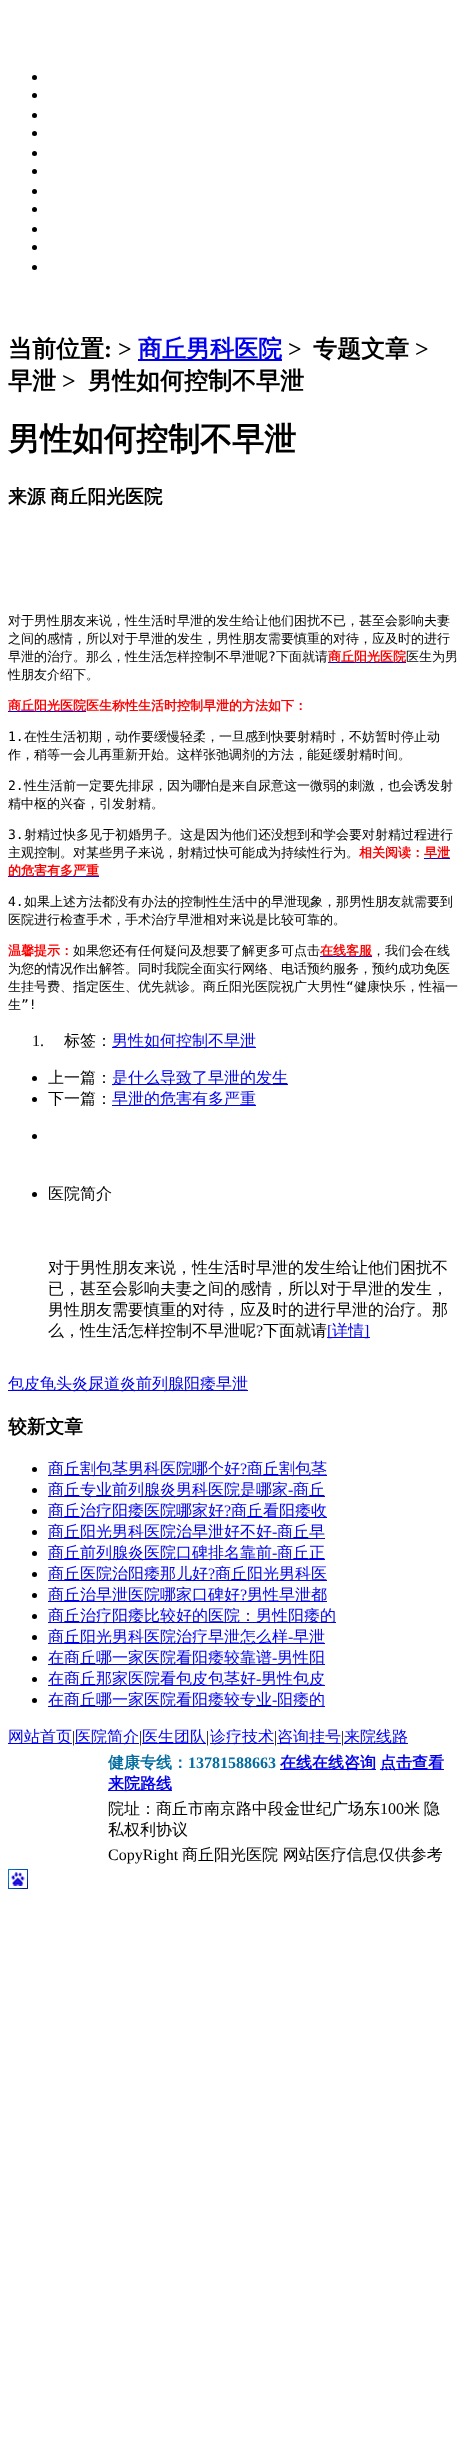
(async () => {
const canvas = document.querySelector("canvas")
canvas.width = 466
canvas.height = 2454
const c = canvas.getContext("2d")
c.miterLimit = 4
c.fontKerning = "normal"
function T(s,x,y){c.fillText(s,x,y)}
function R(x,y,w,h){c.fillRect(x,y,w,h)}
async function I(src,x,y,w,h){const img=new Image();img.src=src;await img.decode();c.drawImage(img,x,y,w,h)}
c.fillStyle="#fff"
R(0,0,466,2454)
c.fillStyle="#000"
c.beginPath()
c.arc(34.5,77.5,2.5,0,7)
c.fill()
c.beginPath()
c.arc(34.5,95.5,2.5,0,7)
c.fill()
c.beginPath()
c.arc(34.5,115.5,2.5,0,7)
c.fill()
c.beginPath()
c.arc(34.5,133.5,2.5,0,7)
c.fill()
c.beginPath()
c.arc(34.5,153.5,2.5,0,7)
c.fill()
c.beginPath()
c.arc(34.5,171.5,2.5,0,7)
c.fill()
c.beginPath()
c.arc(34.5,191.5,2.5,0,7)
c.fill()
c.beginPath()
c.arc(34.5,209.5,2.5,0,7)
c.fill()
c.beginPath()
c.arc(34.5,229.5,2.5,0,7)
c.fill()
c.beginPath()
c.arc(34.5,247.5,2.5,0,7)
c.fill()
c.beginPath()
c.arc(34.5,267.5,2.5,0,7)
c.fill()
c.font="bold 24px WenQuanYi Zen Hei"
T("当前位置",8,357)
c.font="bold 24px Liberation Serif"
T(": >",104,357)
c.fillStyle="#00e"
R(138,359,144,2)
c.font="bold 24px WenQuanYi Zen Hei"
T("商丘男科医院",138,357)
c.font="bold 24px Liberation Serif"
c.fillStyle="#000"
T(">",288,357)
c.font="bold 24px WenQuanYi Zen Hei"
T("专题文章",313,357)
c.font="bold 24px Liberation Serif"
T(">",415,357)
c.font="bold 24px WenQuanYi Zen Hei"
T("早泄",8,389)
c.font="bold 24px Liberation Serif"
T(">",62,389)
c.font="bold 24px WenQuanYi Zen Hei"
T("男性如何控制不早泄",88,389)
c.font="bold 32px WenQuanYi Zen Hei"
T("男性如何控制不早泄",8,450)
c.wordSpacing="-1px"
c.font="bold 18.75px WenQuanYi Zen Hei"
T("来源 商丘阳光医院",8,503)
c.wordSpacing="0px"
c.font="500 13px WenQuanYi Zen Hei"
T("对于男性朋友来说，性生活时早泄的发生给让他们困扰不已，甚至会影响夫妻",8,625)
T("之间的感情，所以对于早泄的发生，男性朋友需要慎重的对待，应及时的进行",8,643)
T("早泄的治疗。那么，性生活怎样控制不早泄呢",8,661)
c.font="13px DejaVu Sans Mono"
T("?",268,661)
c.font="500 13px WenQuanYi Zen Hei"
T("下面就请",276,661)
c.fillStyle="#00e"
R(328,662,78,1)
c.font="bold 13px WenQuanYi Zen Hei"
c.fillStyle="#f00"
T("商丘阳光医院",328,661)
c.font="500 13px WenQuanYi Zen Hei"
c.fillStyle="#000"
T("医生为男",406,661)
T("性朋友介绍下。",8,679)
c.fillStyle="#00e"
R(8,711,78,1)
c.font="bold 13px WenQuanYi Zen Hei"
c.fillStyle="#f00"
T("商丘阳光医院医生称性生活时控制早泄的方法如下：",8,710)
c.font="13px DejaVu Sans Mono"
c.fillStyle="#000"
T("1.",8,741)
c.font="500 13px WenQuanYi Zen Hei"
T("在性生活初期，动作要缓慢轻柔，一旦感到快要射精时，不妨暂时停止动",24,741)
T("作，稍等一会儿再重新开始。这样张弛调剂的方法，能延缓射精时间。",8,759)
c.font="13px DejaVu Sans Mono"
T("2.",8,790)
c.font="500 13px WenQuanYi Zen Hei"
T("性生活前一定要先排尿，因为哪怕是来自尿意这一微弱的刺激，也会诱发射",24,790)
T("精中枢的兴奋，引发射精。",8,808)
c.font="13px DejaVu Sans Mono"
T("3.",8,839)
c.font="500 13px WenQuanYi Zen Hei"
T("射精过快多见于初婚男子。这是因为他们还没想到和学会要对射精过程进行",24,839)
T("主观控制。对某些男子来说，射精过快可能成为持续性行为。",8,857)
c.font="bold 13px WenQuanYi Zen Hei"
c.fillStyle="#f00"
T("相关阅读：",359,857)
c.fillStyle="#00e"
R(424,858,26,1)
c.fillStyle="#f00"
T("早泄",424,857)
c.fillStyle="#00e"
R(8,876,91,1)
c.fillStyle="#f00"
T("的危害有多严重",8,875)
c.font="13px DejaVu Sans Mono"
c.fillStyle="#000"
T("4.",8,906)
c.font="500 13px WenQuanYi Zen Hei"
T("如果上述方法都没有办法的控制性生活中的早泄现象，那男性朋友就需要到",24,906)
T("医院进行检查手术，手术治疗早泄相对来说是比较可靠的。",8,924)
c.font="bold 13px WenQuanYi Zen Hei"
c.fillStyle="#f00"
T("温馨提示：",8,955)
c.font="500 13px WenQuanYi Zen Hei"
c.fillStyle="#000"
T("如果您还有任何疑问及想要了解更多可点击",73,955)
c.fillStyle="#00e"
R(320,956,52,1)
c.font="bold 13px WenQuanYi Zen Hei"
c.fillStyle="#f00"
T("在线客服",320,955)
c.font="500 13px WenQuanYi Zen Hei"
c.fillStyle="#000"
T("，我们会在线",372,955)
T("为您的情况作出解答。同时我院全面实行网络、电话预约服务，预约成功免医",8,973)
T("生挂号费、指定医生、优先就诊。商丘阳光医院祝广大男性",8,991)
c.font="13px DejaVu Sans Mono"
T("“",346,991)
c.font="500 13px WenQuanYi Zen Hei"
T("健康快乐，性福一",354,991)
T("生",8,1009)
c.font="13px DejaVu Sans Mono"
T("”!",21,1009)
c.font="16px Liberation Serif"
T("1.",32,1046)
c.font="500 16px WenQuanYi Zen Hei"
T("标签：",64,1046)
c.fillStyle="#00e"
R(112,1047,144,1)
T("男性如何控制不早泄",112,1046)
c.fillStyle="#000"
c.beginPath()
c.arc(34.5,1078.5,2.5,0,7)
c.fill()
T("上一篇：",48,1083)
c.fillStyle="#00e"
R(112,1084,176,1)
T("是什么导致了早泄的发生",112,1083)
c.fillStyle="#000"
c.beginPath()
c.arc(34.5,1099.5,2.5,0,7)
c.fill()
T("下一篇：",48,1104)
c.fillStyle="#00e"
R(112,1105,144,1)
T("早泄的危害有多严重",112,1104)
c.fillStyle="#000"
c.beginPath()
c.arc(34.5,1136.5,2.5,0,7)
c.fill()
c.beginPath()
c.arc(34.5,1194.5,2.5,0,7)
c.fill()
T("医院简介",48,1199)
T("对于男性朋友来说，性生活时早泄的发生给让他们困扰不",48,1273)
T("已，甚至会影响夫妻之间的感情，所以对于早泄的发生，",48,1294)
T("男性朋友需要慎重的对待，应及时的进行早泄的治疗。那",48,1315)
T("么，性生活怎样控制不早泄呢",48,1336)
c.font="16px Liberation Serif"
T("?",256,1336)
c.font="500 16px WenQuanYi Zen Hei"
T("下面就请",263,1336)
c.fillStyle="#00e"
R(327,1337,43,1)
c.font="16px Liberation Serif"
T("[",327,1336)
c.font="500 16px WenQuanYi Zen Hei"
T("详情",332,1336)
c.font="16px Liberation Serif"
T("]",364,1336)
R(8,1390,240,1)
c.font="500 16px WenQuanYi Zen Hei"
T("包皮龟头炎尿道炎前列腺阳痿早泄",8,1389)
c.font="bold 18.75px WenQuanYi Zen Hei"
c.fillStyle="#000"
T("较新文章",8,1433)
c.beginPath()
c.arc(34.5,1469.5,2.5,0,7)
c.fill()
c.fillStyle="#00e"
R(48,1475,279,1)
c.font="500 16px WenQuanYi Zen Hei"
T("商丘割包茎男科医院哪个好",48,1474)
c.font="16px Liberation Serif"
T("?",240,1474)
c.font="500 16px WenQuanYi Zen Hei"
T("商丘割包茎",247,1474)
c.fillStyle="#000"
c.beginPath()
c.arc(34.5,1490.5,2.5,0,7)
c.fill()
c.fillStyle="#00e"
R(48,1496,277,1)
T("商丘专业前列腺炎男科医院是哪家",48,1495)
c.font="16px Liberation Serif"
T("-",288,1495)
c.font="500 16px WenQuanYi Zen Hei"
T("商丘",293,1495)
c.fillStyle="#000"
c.beginPath()
c.arc(34.5,1511.5,2.5,0,7)
c.fill()
c.fillStyle="#00e"
R(48,1517,279,1)
T("商丘治疗阳痿医院哪家好",48,1516)
c.font="16px Liberation Serif"
T("?",224,1516)
c.font="500 16px WenQuanYi Zen Hei"
T("商丘看阳痿收",231,1516)
c.fillStyle="#000"
c.beginPath()
c.arc(34.5,1532.5,2.5,0,7)
c.fill()
c.fillStyle="#00e"
R(48,1538,277,1)
T("商丘阳光男科医院治早泄好不好",48,1537)
c.font="16px Liberation Serif"
T("-",272,1537)
c.font="500 16px WenQuanYi Zen Hei"
T("商丘早",277,1537)
c.fillStyle="#000"
c.beginPath()
c.arc(34.5,1553.5,2.5,0,7)
c.fill()
c.fillStyle="#00e"
R(48,1559,277,1)
T("商丘前列腺炎医院口碑排名靠前",48,1558)
c.font="16px Liberation Serif"
T("-",272,1558)
c.font="500 16px WenQuanYi Zen Hei"
T("商丘正",277,1558)
c.fillStyle="#000"
c.beginPath()
c.arc(34.5,1574.5,2.5,0,7)
c.fill()
c.fillStyle="#00e"
R(48,1580,279,1)
T("商丘医院治阳痿那儿好",48,1579)
c.font="16px Liberation Serif"
T("?",208,1579)
c.font="500 16px WenQuanYi Zen Hei"
T("商丘阳光男科医",215,1579)
c.fillStyle="#000"
c.beginPath()
c.arc(34.5,1595.5,2.5,0,7)
c.fill()
c.fillStyle="#00e"
R(48,1601,279,1)
T("商丘治早泄医院哪家口碑好",48,1600)
c.font="16px Liberation Serif"
T("?",240,1600)
c.font="500 16px WenQuanYi Zen Hei"
T("男性早泄都",247,1600)
c.fillStyle="#000"
c.beginPath()
c.arc(34.5,1616.5,2.5,0,7)
c.fill()
c.fillStyle="#00e"
R(48,1622,288,1)
T("商丘治疗阳痿比较好的医院：男性阳痿的",48,1621)
c.fillStyle="#000"
c.beginPath()
c.arc(34.5,1637.5,2.5,0,7)
c.fill()
c.fillStyle="#00e"
R(48,1643,277,1)
T("商丘阳光男科医院治疗早泄怎么样",48,1642)
c.font="16px Liberation Serif"
T("-",288,1642)
c.font="500 16px WenQuanYi Zen Hei"
T("早泄",293,1642)
c.fillStyle="#000"
c.beginPath()
c.arc(34.5,1658.5,2.5,0,7)
c.fill()
c.fillStyle="#00e"
R(48,1664,277,1)
T("在商丘哪一家医院看阳痿较靠谱",48,1663)
c.font="16px Liberation Serif"
T("-",272,1663)
c.font="500 16px WenQuanYi Zen Hei"
T("男性阳",277,1663)
c.fillStyle="#000"
c.beginPath()
c.arc(34.5,1679.5,2.5,0,7)
c.fill()
c.fillStyle="#00e"
R(48,1685,277,1)
T("在商丘那家医院看包皮包茎好",48,1684)
c.font="16px Liberation Serif"
T("-",256,1684)
c.font="500 16px WenQuanYi Zen Hei"
T("男性包皮",261,1684)
c.fillStyle="#000"
c.beginPath()
c.arc(34.5,1700.5,2.5,0,7)
c.fill()
c.fillStyle="#00e"
R(48,1706,277,1)
T("在商丘哪一家医院看阳痿较专业",48,1705)
c.font="16px Liberation Serif"
T("-",272,1705)
c.font="500 16px WenQuanYi Zen Hei"
T("阳痿的",277,1705)
R(8,1743,64,1)
T("网站首页",8,1742)
c.font="16px Liberation Serif"
c.fillStyle="#000"
T("|",72,1742)
c.fillStyle="#00e"
R(75,1743,64,1)
c.font="500 16px WenQuanYi Zen Hei"
T("医院简介",75,1742)
c.font="16px Liberation Serif"
c.fillStyle="#000"
T("|",139,1742)
c.fillStyle="#00e"
R(142,1743,64,1)
c.font="500 16px WenQuanYi Zen Hei"
T("医生团队",142,1742)
c.font="16px Liberation Serif"
c.fillStyle="#000"
T("|",206,1742)
c.fillStyle="#00e"
R(210,1743,64,1)
c.font="500 16px WenQuanYi Zen Hei"
T("诊疗技术",210,1742)
c.font="16px Liberation Serif"
c.fillStyle="#000"
T("|",274,1742)
c.fillStyle="#00e"
R(277,1743,64,1)
c.font="500 16px WenQuanYi Zen Hei"
T("咨询挂号",277,1742)
c.font="16px Liberation Serif"
c.fillStyle="#000"
T("|",341,1742)
c.fillStyle="#00e"
R(344,1743,64,1)
c.font="500 16px WenQuanYi Zen Hei"
T("来院线路",344,1742)
c.font="bold 16px WenQuanYi Zen Hei"
c.fillStyle="#036da1"
T("健康专线：",108,1768)
c.font="bold 16px Liberation Serif"
T("13781588663",188,1768)
c.fillStyle="#00e"
R(280,1769,96,1)
c.font="bold 16px WenQuanYi Zen Hei"
T("在线在线咨询",280,1768)
R(380,1769,64,1)
T("点击查看",380,1768)
R(108,1790,64,1)
T("来院路线",108,1789)
c.font="500 16px WenQuanYi Zen Hei"
c.fillStyle="#000"
T("院址：商丘市南京路中段金世纪广场东",108,1814)
c.font="16px Liberation Serif"
T("100",380,1814)
c.wordSpacing="-1px"
c.font="500 16px WenQuanYi Zen Hei"
T("米 隐",404,1814)
c.wordSpacing="0px"
T("私权利协议",108,1835)
c.font="16px Liberation Serif"
T("CopyRight",108,1860)
c.font="500 16px WenQuanYi Zen Hei"
T("商丘阳光医院 网站医疗信息仅供参考",182,1860)
await I("1.png",8,1869,20,20)
})()
